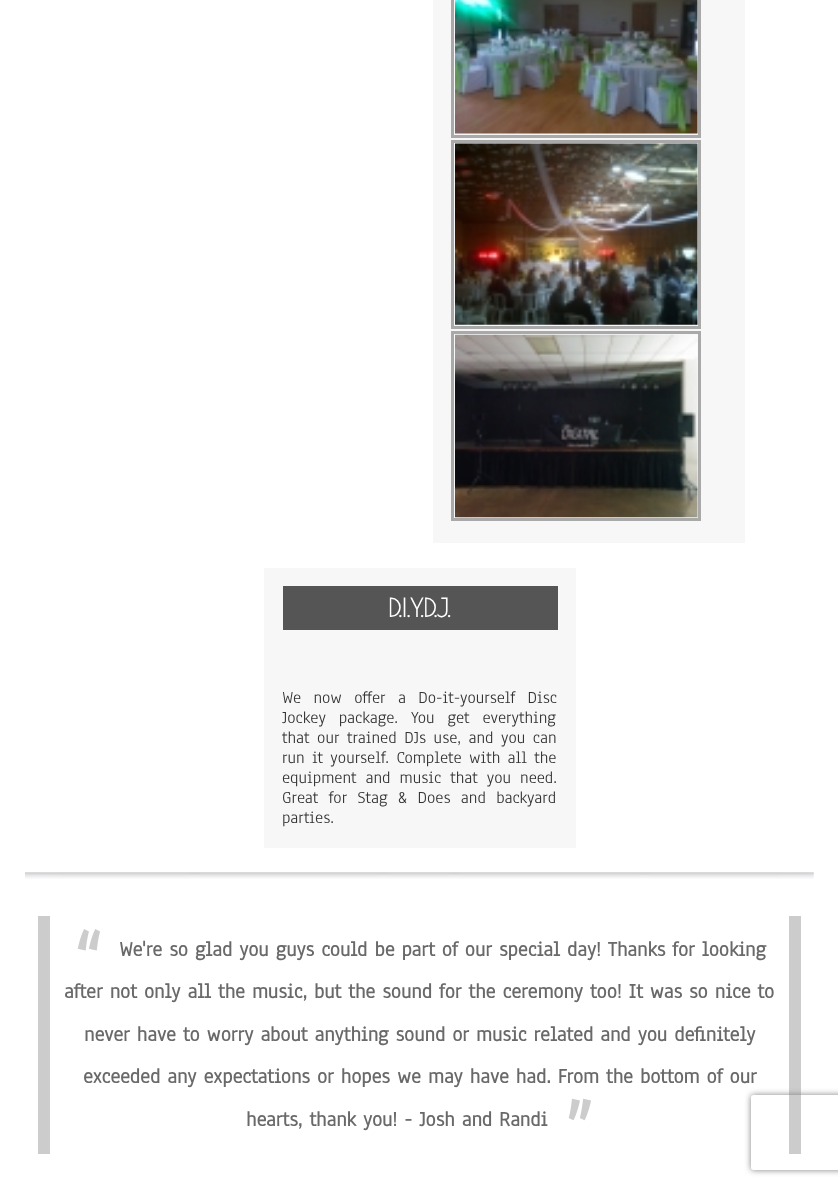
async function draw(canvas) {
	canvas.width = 838;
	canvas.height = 1187;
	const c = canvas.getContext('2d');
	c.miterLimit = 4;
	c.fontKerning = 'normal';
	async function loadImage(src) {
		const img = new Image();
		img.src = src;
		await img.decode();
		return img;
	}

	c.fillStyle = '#fff';
	c.fillRect(0, 0, 838, 1187);
	c.fillStyle = '#f7f7f7';
	c.fillRect(433, 0, 312, 543);
	c.strokeStyle = '#a9a9a9';
	c.lineWidth = 3;
	c.strokeRect(452.5, -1.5, 247, 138);
	c.drawImage(await loadImage('img1.png'), 455, 0, 243, 134);
	c.strokeRect(452.5, 141.5, 247, 186);
	c.drawImage(await loadImage('img2.png'), 455, 143, 243, 182);
	c.strokeRect(452.5, 332.5, 247, 187);
	c.drawImage(await loadImage('img3.png'), 455, 334, 243, 184);
	c.fillRect(264, 568, 312, 280);
	c.fillStyle = '#555';
	c.fillRect(283, 586, 275, 44);
	c.font = 'bold 25px Poiret One';
	c.fillStyle = '#fff';
	c.fillText('D.I.Y.D.J.', 388, 617);
	c.wordSpacing = '6.5px';
	c.font = '17.5px Anaheim';
	c.fillStyle = '#333';
	c.fillText('We now offer a Do-it-yourself Disc', 282, 703);
	c.wordSpacing = '7px';
	c.fillText('Jockey package.', 282, 723);
	c.fillText('You get everything', 411, 723);
	c.wordSpacing = '1.75px';
	c.fillText('that our trained DJs use, and you can', 282, 743);
	c.wordSpacing = '1.5px';
	c.fillText('run it yourself. Complete with all the', 282, 763);
	c.wordSpacing = '3.25px';
	c.fillText('equipment and music that you need.', 282, 783);
	c.wordSpacing = '4.5px';
	c.fillText('Great for Stag & Does and backyard', 282, 803);
	c.wordSpacing = '0px';
	c.fillText('parties.', 282, 823);
	c.drawImage(await loadImage('img4.png'), 25, 872, 789, 7);
	c.fillStyle = '#ccc';
	c.fillRect(789, 916, 12, 238);
	c.fillRect(38, 916, 12, 238);
	c.font = 'bold 85px Anaheim';
	c.fillText('“', 73, 990);
	c.font = 'bold 21.25px Anaheim';
	c.fillStyle = '#6a6969';
	for (const [text, x, y] of [
		['We\'re so glad you guys could be part of our special day! Thanks for looking', 119, 956],
		['after not only all the music, but the sound for the ceremony too! It was so nice to', 64, 998],
		['never have to worry about anything sound or music related and you definitely', 84, 1041],
		['exceeded any expectations or hopes we may have had. From the bottom of our', 83, 1083],
		['hearts, thank you! - Josh and Randi', 246, 1126],
	]) {
		c.fillText(text, x, y);
	}
	c.font = 'bold 85px Anaheim';
	c.fillStyle = '#ccc';
	c.fillText('”', 564, 1160);
	c.save();
	c.beginPath();
	c.moveTo(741, 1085);
	c.lineTo(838, 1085);
	c.lineTo(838, 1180);
	c.lineTo(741, 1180);
	c.closePath();
	c.moveTo(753.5, 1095);
	c.lineTo(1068.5, 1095);
	c.bezierCurveTo(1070, 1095, 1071, 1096, 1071, 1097.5);
	c.lineTo(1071, 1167.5);
	c.bezierCurveTo(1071, 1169, 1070, 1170, 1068.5, 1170);
	c.lineTo(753.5, 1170);
	c.bezierCurveTo(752, 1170, 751, 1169, 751, 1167.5);
	c.lineTo(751, 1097.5);
	c.bezierCurveTo(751, 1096, 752, 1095, 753.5, 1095);
	c.closePath();
	c.clip('evenodd');
	c.fillStyle = '#808080';
	c.filter = 'blur(3px)';
	c.beginPath();
	c.roundRect(751, 1095, 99, 75, 2.5);
	c.fill();
	c.filter = 'none';
	c.restore();
}

draw(document.querySelector('canvas'));
